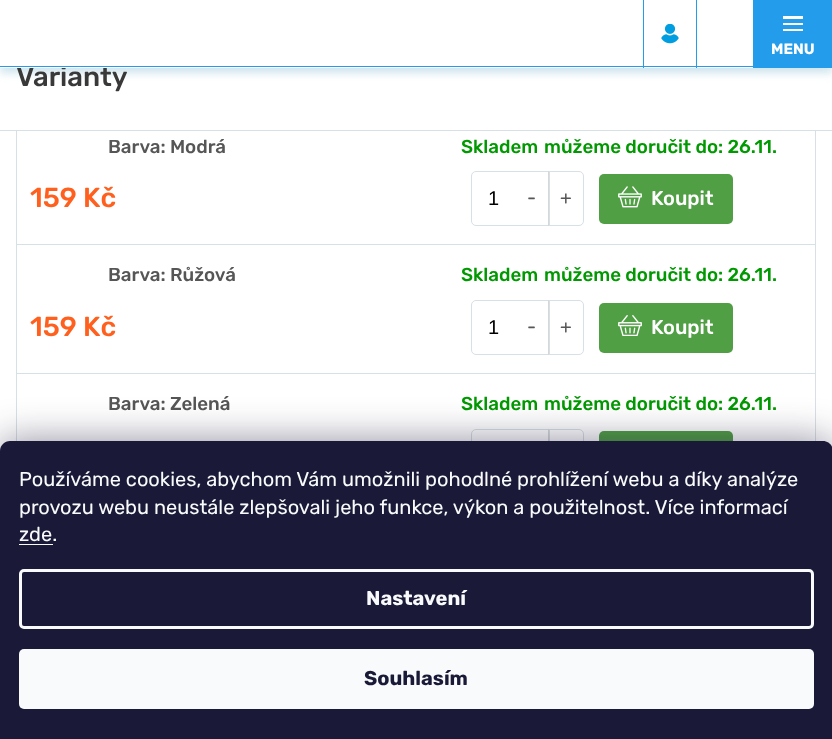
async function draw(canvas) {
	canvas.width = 832;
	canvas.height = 739;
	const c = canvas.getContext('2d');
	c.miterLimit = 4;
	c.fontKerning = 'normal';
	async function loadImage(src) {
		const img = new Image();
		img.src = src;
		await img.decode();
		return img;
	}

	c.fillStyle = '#fff';
	c.fillRect(0, 0, 832, 739);
	c.fillStyle = '#cee4ed';
	c.filter = 'blur(4px)';
	c.beginPath();
	c.rect(0, 5, 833, 68);
	c.fill();
	c.filter = 'none';
	c.font = '500 27.5px Rubik';
	c.fillStyle = '#393939';
	c.fillText('Varianty', 16, 86);
	for (const [x, y, w, h, color] of [
		[0, 0, 753, 68, '#fff'],
		[0, 66, 753, 1, '#239ceb'],
		[696, 0, 1, 68, '#239ceb'],
		[643, 0, 1, 68, '#239ceb'],
	]) {
		c.fillStyle = color;
		c.fillRect(x, y, w, h);
	}
	c.drawImage(await loadImage('img1.png'), 661, 24, 18, 20);
	for (const [x, y, w, h, color] of [
		[753, 0, 79, 68, '#239ceb'],
		[783, 16, 20, 3, '#fff'],
		[783, 23, 20, 2, '#fff'],
		[783, 29, 20, 2, '#fff'],
	]) {
		c.fillStyle = color;
		c.fillRect(x, y, w, h);
	}
	c.font = 'bold 15px Rubik';
	c.fillText('MENU', 771, 54);
	c.fillStyle = '#d6e0e5';
	c.fillRect(815, 131, 1, 113);
	c.fillRect(16, 131, 1, 113);
	c.font = '500 18.75px Rubik';
	c.fillStyle = '#565656';
	c.fillText('Barva: Modrá', 108, 153);
	c.fillStyle = '#009901';
	c.fillText('Skladem', 461, 153);
	c.fillText('můžeme doručit do: 26.11.', 544, 153);
	c.font = '500 27.5px Rubik';
	c.fillStyle = '#ff601e';
	c.fillText('159 Kč', 30, 207);
	c.beginPath();
	c.roundRect(471.5, 171.5, 112, 54, 4.5);
	c.strokeStyle = '#d6e0e5';
	c.stroke();
	c.font = '20px Liberation Sans';
	c.fillStyle = '#000';
	c.fillText('1', 488, 205);
	c.fillStyle = '#d7d7d7';
	c.fillRect(548, 171, 1, 55);
	c.font = '18.75px Rubik';
	c.fillStyle = '#565656';
	c.fillText('-', 527, 204);
	c.fillStyle = '#d6e0e5';
	c.fillRect(549, 171, 1, 55);
	c.fillStyle = '#565656';
	c.fillText('+', 560, 204);
	c.fillStyle = '#519f45';
	c.beginPath();
	c.roundRect(599, 174, 134, 50, 5);
	c.fill();
	c.drawImage(await loadImage('img2.png'), 618, 186, 24, 22);
	c.font = '500 20px Rubik';
	c.fillStyle = '#fff';
	c.fillText('Koupit', 651, 205);
	for (const [x, y, w, h, color] of [
		[16, 244, 800, 1, '#d6e0e5'],
		[815, 244, 1, 129, '#d6e0e5'],
		[16, 244, 1, 129, '#d6e0e5'],
	]) {
		c.fillStyle = color;
		c.fillRect(x, y, w, h);
	}
	c.font = '500 18.75px Rubik';
	c.fillStyle = '#565656';
	c.fillText('Barva: Růžová', 108, 281);
	c.fillStyle = '#009901';
	c.fillText('Skladem', 461, 281);
	c.fillText('můžeme doručit do: 26.11.', 544, 281);
	c.font = '500 27.5px Rubik';
	c.fillStyle = '#ff601e';
	c.fillText('159 Kč', 30, 336);
	c.beginPath();
	c.roundRect(471.5, 300.5, 112, 54, 4.5);
	c.stroke();
	c.font = '20px Liberation Sans';
	c.fillStyle = '#000';
	c.fillText('1', 488, 334);
	c.fillStyle = '#d7d7d7';
	c.fillRect(548, 300, 1, 55);
	c.font = '18.75px Rubik';
	c.fillStyle = '#565656';
	c.fillText('-', 527, 333);
	c.fillStyle = '#d6e0e5';
	c.fillRect(549, 300, 1, 55);
	c.fillStyle = '#565656';
	c.fillText('+', 560, 333);
	c.fillStyle = '#519f45';
	c.beginPath();
	c.roundRect(599, 303, 134, 50, 5);
	c.fill();
	c.drawImage(await loadImage('img3.png'), 618, 315, 24, 21);
	c.font = '500 20px Rubik';
	c.fillStyle = '#fff';
	c.fillText('Koupit', 651, 334);
	for (const [x, y, w, h, color] of [
		[16, 373, 800, 1, '#d6e0e5'],
		[815, 373, 1, 68, '#d6e0e5'],
		[16, 373, 1, 68, '#d6e0e5'],
	]) {
		c.fillStyle = color;
		c.fillRect(x, y, w, h);
	}
	c.font = '500 18.75px Rubik';
	c.fillStyle = '#565656';
	c.fillText('Barva: Zelená', 108, 410);
	c.fillStyle = '#009901';
	c.fillText('Skladem', 461, 410);
	c.fillText('můžeme doručit do: 26.11.', 544, 410);
	c.beginPath();
	c.roundRect(471.5, 429.5, 112, 54, 4.5);
	c.stroke();
	c.fillStyle = '#d7d7d7';
	c.fillRect(548, 429, 1, 12);
	c.fillStyle = '#d6e0e5';
	c.fillRect(549, 429, 1, 12);
	c.fillStyle = '#519f45';
	c.beginPath();
	c.roundRect(599, 431, 134, 50, 5);
	c.fill();
	c.fillStyle = '#d6e0e5';
	c.fillRect(0, 130, 832, 1);
	c.fillStyle = '#1b193980';
	c.filter = 'blur(19px)';
	c.beginPath();
	c.roundRect(0, 441, 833, 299, 10);
	c.fill();
	c.filter = 'none';
	c.fillStyle = '#1a1937';
	c.beginPath();
	c.moveTo(10, 441);
	c.lineTo(823, 441);
	c.bezierCurveTo(828.5, 441, 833, 445.5, 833, 451);
	c.lineTo(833, 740);
	c.lineTo(0, 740);
	c.lineTo(0, 451);
	c.bezierCurveTo(0, 445.5, 4.5, 441, 10, 441);
	c.closePath();
	c.fill();
	c.font = '20px Rubik';
	c.fillStyle = '#f8fafb';
	for (const [text, x, y] of [
		['Používáme cookies, abychom Vám umožnili pohodlné prohlížení webu a díky analýze', 19, 486],
		['provozu webu neustále zlepšovali jeho funkce, výkon a použitelnost. Více informací', 19, 514],
		['zde.', 19, 541],
	]) {
		c.fillText(text, x, y);
	}
	c.fillRect(19, 544, 34, 1);
	c.beginPath();
	c.roundRect(20.5, 570.5, 792, 57, 3.5);
	c.strokeStyle = '#f8fafb';
	c.lineWidth = 3;
	c.stroke();
	c.font = 'bold 20px Rubik';
	c.fillText('Nastavení', 366, 605);
	c.beginPath();
	c.roundRect(19, 649, 795, 60, 5);
	c.fill();
	c.fillStyle = '#1a1937';
	c.fillText('Souhlasím', 364, 685);
}

draw(document.querySelector('canvas'));
